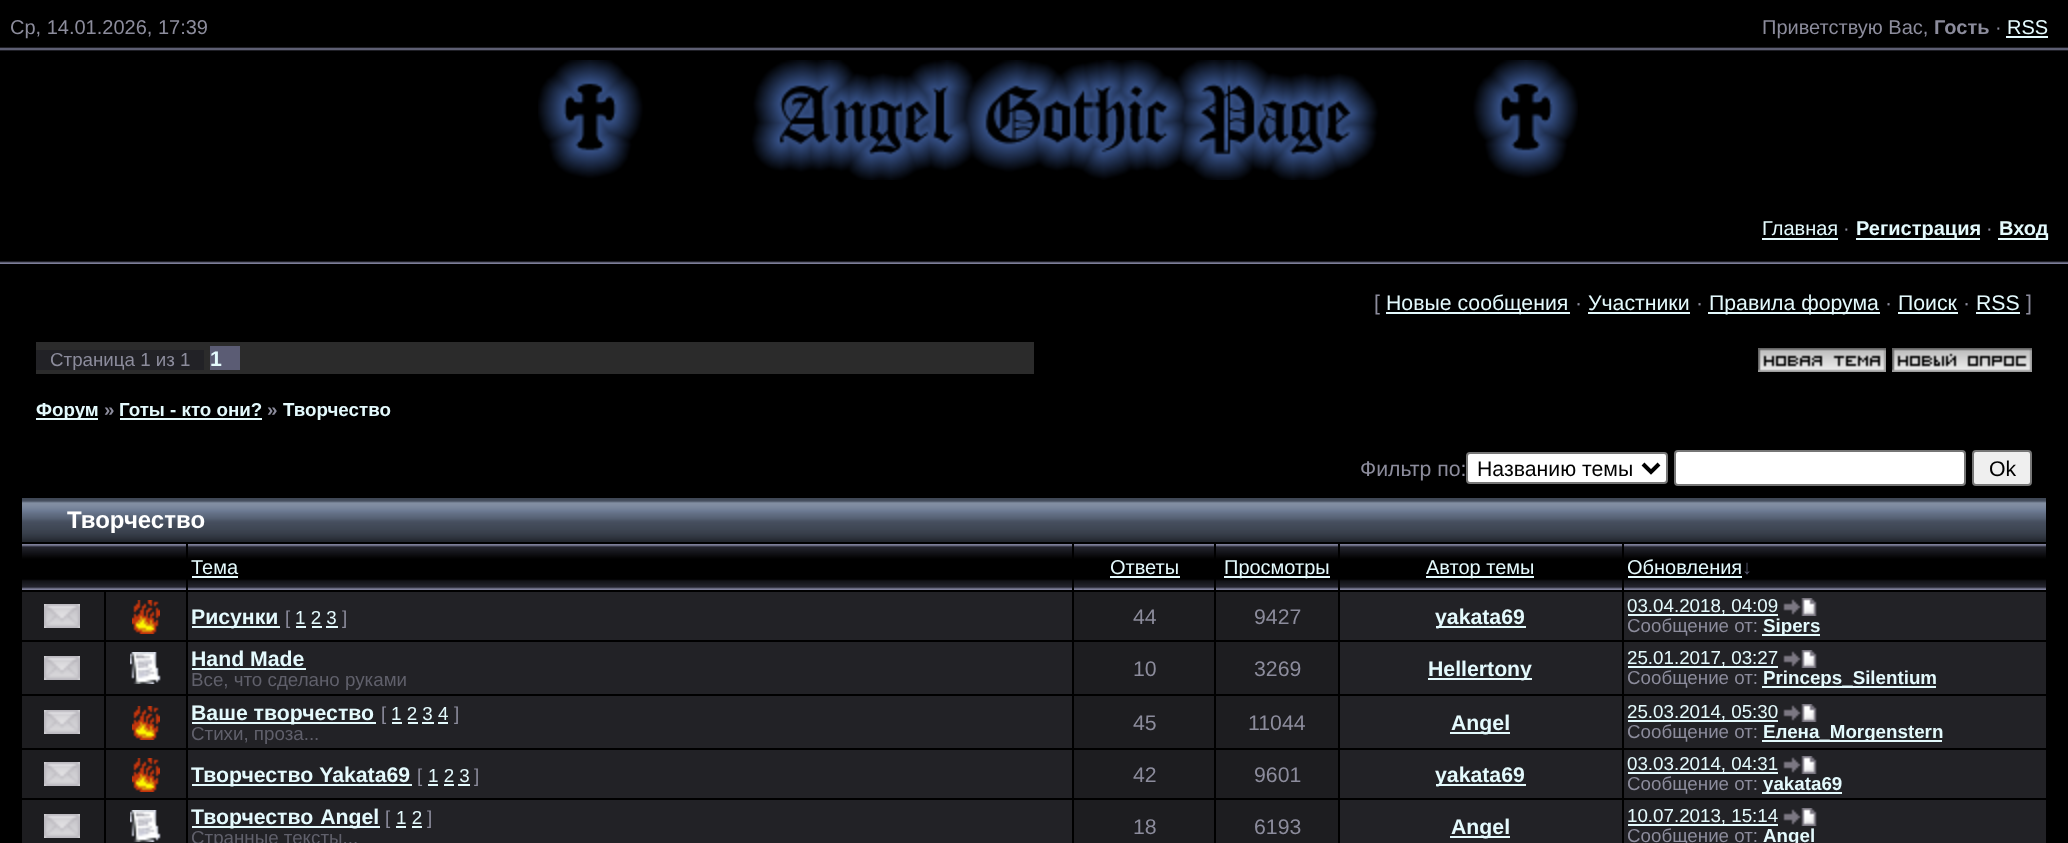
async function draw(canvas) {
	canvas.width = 2068;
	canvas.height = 843;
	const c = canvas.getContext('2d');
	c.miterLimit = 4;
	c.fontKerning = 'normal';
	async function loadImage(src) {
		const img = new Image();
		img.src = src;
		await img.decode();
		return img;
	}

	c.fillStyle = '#000';
	c.fillRect(0, 0, 2068, 843);
	c.drawImage(await loadImage('img1.png'), 0, 47, 2068, 217);
	c.font = '20px Liberation Sans';
	c.fillStyle = '#8c8c9c';
	c.fillText('Ср, 14.01.2026, 17:39', 10, 34);
	c.fillText('Приветствую Вас,', 1762, 34);
	c.font = 'bold 20px Liberation Sans';
	c.fillText('Гость', 1934, 34);
	c.font = '20px Liberation Sans';
	c.fillText('·', 1995, 34);
	c.fillStyle = '#e4fafd';
	c.fillText('RSS', 2007, 34);
	c.fillRect(2006, 36, 42, 2);
	c.drawImage(await loadImage('img2.png'), 538, 60, 1040, 120);
	c.fillText('Главная', 1762, 235);
	c.fillRect(1762, 238, 76, 2);
	c.fillStyle = '#8c8c9c';
	c.fillText('·', 1843, 235);
	c.fillStyle = '#e4fafd';
	c.fillRect(1856, 238, 124, 2);
	c.font = 'bold 20px Liberation Sans';
	c.fillText('Регистрация', 1856, 235);
	c.font = '20px Liberation Sans';
	c.fillStyle = '#8c8c9c';
	c.fillText('·', 1986, 235);
	c.fillStyle = '#e4fafd';
	c.fillRect(1998, 238, 50, 2);
	c.font = 'bold 20px Liberation Sans';
	c.fillText('Вход', 1999, 235);
	c.font = '21.25px Liberation Sans';
	c.fillStyle = '#8c8c9c';
	c.fillText('[', 1374, 310);
	c.fillStyle = '#e4fafd';
	c.fillRect(1386, 312, 184, 2);
	c.fillText('Новые сообщения', 1386, 310);
	c.fillStyle = '#8c8c9c';
	c.fillText('·', 1575, 310);
	c.fillStyle = '#e4fafd';
	c.fillText('Участники', 1588, 310);
	c.fillRect(1588, 312, 102, 2);
	c.fillStyle = '#8c8c9c';
	c.fillText('·', 1696, 310);
	c.fillStyle = '#e4fafd';
	c.fillRect(1708, 312, 172, 2);
	c.fillText('Правила форума', 1709, 310);
	c.fillStyle = '#8c8c9c';
	c.fillText('·', 1885, 310);
	c.fillStyle = '#e4fafd';
	c.fillText('Поиск', 1898, 310);
	c.fillRect(1898, 312, 60, 2);
	c.fillStyle = '#8c8c9c';
	c.fillText('·', 1963, 310);
	c.fillStyle = '#e4fafd';
	c.fillText('RSS', 1976, 310);
	c.fillRect(1976, 312, 44, 2);
	c.fillStyle = '#8c8c9c';
	c.fillText(']', 2026, 310);
	c.fillStyle = '#2b2b2b';
	c.fillRect(36, 342, 998, 32);
	c.fillStyle = '#222226';
	c.fillRect(36, 350, 168, 20);
	c.font = '18.75px Liberation Sans';
	c.fillStyle = '#8c8c9c';
	c.fillText('Страница 1 из 1', 50, 366);
	c.fillStyle = '#5b5c74';
	c.fillRect(210, 346, 30, 24);
	c.font = 'bold 21.25px Liberation Sans';
	c.fillStyle = '#e4fafd';
	c.fillText('1', 210, 366);
	c.drawImage(await loadImage('img3.png'), 1758, 348, 128, 24);
	c.drawImage(await loadImage('img4.png'), 1892, 348, 140, 24);
	c.fillRect(36, 418, 62, 2);
	c.font = 'bold 18.75px Liberation Sans';
	c.fillText('Форум', 36, 416);
	c.fillStyle = '#8c8c9c';
	c.fillText('»', 104, 416);
	c.fillStyle = '#e4fafd';
	c.fillText('Готы - кто они?', 119, 416);
	c.fillRect(120, 418, 142, 2);
	c.fillStyle = '#8c8c9c';
	c.fillText('»', 267, 416);
	c.fillStyle = '#e4fafd';
	c.fillText('Творчество', 283, 416);
	c.font = '21.25px Liberation Sans';
	c.fillStyle = '#8c8c9c';
	c.fillText('Фильтр по:', 1360, 476);
	c.fillStyle = '#fff';
	c.beginPath();
	c.roundRect(1467, 453, 200, 30, 3);
	c.fill();
	c.strokeStyle = '#767676';
	c.lineWidth = 2;
	c.stroke();
	c.beginPath();
	c.moveTo(1643, 464);
	c.lineTo(1651, 472);
	c.lineTo(1659, 464);
	c.strokeStyle = '#000';
	c.lineWidth = 4;
	c.stroke();
	c.fillStyle = '#000';
	c.fillText('Названию темы', 1477, 476);
	c.fillStyle = '#fff';
	c.beginPath();
	c.roundRect(1675, 451, 290, 34, 3);
	c.fill();
	c.strokeStyle = '#767676';
	c.lineWidth = 2;
	c.stroke();
	c.fillStyle = '#efefef';
	c.beginPath();
	c.roundRect(1973, 451, 58, 34, 3);
	c.fill();
	c.stroke();
	c.fillStyle = '#000';
	c.fillText('Ok', 1989, 476);
	c.drawImage(await loadImage('img5.png'), 22, 498, 2024, 44);
	c.font = 'bold 24px Liberation Sans';
	c.fillStyle = '#fff';
	c.fillText('Творчество', 67, 528);
	c.drawImage(await loadImage('img6.png'), 22, 544, 164, 46);
	c.drawImage(await loadImage('img7.png'), 188, 544, 884, 46);
	c.font = '20px Liberation Sans';
	c.fillStyle = '#e4fafd';
	c.fillText('Тема', 191, 574);
	c.fillRect(192, 576, 46, 2);
	c.drawImage(await loadImage('img8.png'), 1074, 544, 140, 46);
	c.fillText('Ответы', 1110, 574);
	c.fillRect(1110, 576, 70, 2);
	c.drawImage(await loadImage('img9.png'), 1216, 544, 122, 46);
	c.fillRect(1224, 576, 106, 2);
	c.fillText('Просмотры', 1224, 574);
	c.drawImage(await loadImage('img10.png'), 1340, 544, 282, 46);
	c.fillRect(1426, 576, 108, 2);
	c.fillText('Автор темы', 1426, 574);
	c.drawImage(await loadImage('img11.png'), 1624, 544, 422, 46);
	c.fillText('Обновления', 1627, 574);
	c.fillRect(1628, 576, 114, 2);
	c.fillStyle = '#5b5c74';
	c.fillText('↓', 1742, 574);
	c.fillStyle = '#1d1d20';
	c.fillRect(22, 592, 82, 48);
	c.drawImage(await loadImage('img12.png'), 44, 604, 36, 24);
	c.fillRect(106, 592, 80, 48);
	c.drawImage(await loadImage('img13.png'), 132, 600, 28, 34);
	c.fillStyle = '#222226';
	c.fillRect(188, 592, 884, 48);
	c.fillStyle = '#e4fafd';
	c.fillRect(192, 626, 88, 2);
	c.font = 'bold 21.25px Liberation Sans';
	c.fillText('Рисунки', 191, 624);
	c.font = '18.75px Liberation Sans';
	c.fillStyle = '#8c8c9c';
	c.fillText('[', 285, 624);
	c.fillStyle = '#e4fafd';
	c.fillText('1 2 3', 295, 624);
	for (const [x, y, w, h, color] of [
		[296, 626, 10, 2, '#e4fafd'],
		[312, 626, 10, 2, '#e4fafd'],
		[326, 626, 12, 2, '#e4fafd'],
	]) {
		c.fillStyle = color;
		c.fillRect(x, y, w, h);
	}
	c.fillStyle = '#8c8c9c';
	c.fillText(']', 342, 624);
	c.fillStyle = '#1d1d20';
	c.fillRect(1074, 592, 140, 48);
	c.font = '21.25px Liberation Sans';
	c.fillStyle = '#8c8c9c';
	c.fillText('44', 1133, 624);
	c.fillStyle = '#1d1d20';
	c.fillRect(1216, 592, 122, 48);
	c.fillStyle = '#8c8c9c';
	c.fillText('9427', 1254, 624);
	c.fillStyle = '#222226';
	c.fillRect(1340, 592, 282, 48);
	c.fillStyle = '#e4fafd';
	c.fillRect(1436, 626, 90, 2);
	c.font = 'bold 21.25px Liberation Sans';
	c.fillText('yakata69', 1435, 624);
	c.fillStyle = '#222226';
	c.fillRect(1624, 592, 422, 48);
	c.fillStyle = '#e4fafd';
	c.fillRect(1628, 614, 150, 2);
	c.font = '18.75px Liberation Sans';
	c.fillText('03.04.2018, 04:09', 1627, 612);
	c.drawImage(await loadImage('img14.png'), 1783, 598, 34, 18);
	c.fillStyle = '#8c8c9c';
	c.fillText('Сообщение от:', 1627, 632);
	c.fillStyle = '#e4fafd';
	c.fillRect(1762, 634, 58, 2);
	c.font = 'bold 18.75px Liberation Sans';
	c.fillText('Sipers', 1763, 632);
	c.fillStyle = '#1d1d20';
	c.fillRect(22, 642, 82, 52);
	c.drawImage(await loadImage('img12.png'), 44, 656, 36, 24);
	c.fillRect(106, 642, 80, 52);
	c.drawImage(await loadImage('img15.png'), 130, 652, 31, 32);
	c.fillStyle = '#222226';
	c.fillRect(188, 642, 884, 52);
	c.font = 'bold 21.25px Liberation Sans';
	c.fillStyle = '#e4fafd';
	c.fillText('Hand Made', 191, 666);
	c.fillRect(192, 668, 114, 2);
	c.font = '18.75px Liberation Sans';
	c.fillStyle = '#60606b';
	c.fillText('Все, что сделано руками', 191, 686);
	c.fillStyle = '#1d1d20';
	c.fillRect(1074, 642, 140, 52);
	c.font = '21.25px Liberation Sans';
	c.fillStyle = '#8c8c9c';
	c.fillText('10', 1133, 676);
	c.fillStyle = '#1d1d20';
	c.fillRect(1216, 642, 122, 52);
	c.fillStyle = '#8c8c9c';
	c.fillText('3269', 1254, 676);
	c.fillStyle = '#222226';
	c.fillRect(1340, 642, 282, 52);
	c.fillStyle = '#e4fafd';
	c.fillRect(1428, 678, 104, 2);
	c.font = 'bold 21.25px Liberation Sans';
	c.fillText('Hellertony', 1428, 676);
	c.fillStyle = '#222226';
	c.fillRect(1624, 642, 422, 52);
	c.fillStyle = '#e4fafd';
	c.fillRect(1628, 666, 150, 2);
	c.font = '18.75px Liberation Sans';
	c.fillText('25.01.2017, 03:27', 1627, 664);
	c.drawImage(await loadImage('img14.png'), 1783, 650, 34, 18);
	c.fillStyle = '#8c8c9c';
	c.fillText('Сообщение от:', 1627, 684);
	c.fillStyle = '#e4fafd';
	c.fillRect(1762, 686, 174, 2);
	c.font = 'bold 18.75px Liberation Sans';
	c.fillText('Princeps_Silentium', 1763, 684);
	c.fillStyle = '#1d1d20';
	c.fillRect(22, 696, 82, 52);
	c.drawImage(await loadImage('img12.png'), 44, 710, 36, 24);
	c.fillRect(106, 696, 80, 52);
	c.drawImage(await loadImage('img13.png'), 132, 706, 28, 34);
	c.fillStyle = '#222226';
	c.fillRect(188, 696, 884, 52);
	c.fillStyle = '#e4fafd';
	c.fillRect(192, 722, 184, 2);
	c.font = 'bold 21.25px Liberation Sans';
	c.fillText('Ваше творчество', 191, 720);
	c.font = '18.75px Liberation Sans';
	c.fillStyle = '#8c8c9c';
	c.fillText('[', 381, 720);
	c.fillStyle = '#e4fafd';
	c.fillText('1 2 3 4', 391, 720);
	for (const [x, y, w, h, color] of [
		[392, 722, 10, 2, '#e4fafd'],
		[408, 722, 10, 2, '#e4fafd'],
		[422, 722, 12, 2, '#e4fafd'],
		[438, 722, 10, 2, '#e4fafd'],
	]) {
		c.fillStyle = color;
		c.fillRect(x, y, w, h);
	}
	c.fillStyle = '#8c8c9c';
	c.fillText(']', 454, 720);
	c.fillStyle = '#60606b';
	c.fillText('Стихи, проза...', 191, 740);
	c.fillStyle = '#1d1d20';
	c.fillRect(1074, 696, 140, 52);
	c.font = '21.25px Liberation Sans';
	c.fillStyle = '#8c8c9c';
	c.fillText('45', 1133, 730);
	c.fillStyle = '#1d1d20';
	c.fillRect(1216, 696, 122, 52);
	c.fillStyle = '#8c8c9c';
	c.fillText('11044', 1248, 730);
	c.fillStyle = '#222226';
	c.fillRect(1340, 696, 282, 52);
	c.fillStyle = '#e4fafd';
	c.fillRect(1450, 732, 60, 2);
	c.font = 'bold 21.25px Liberation Sans';
	c.fillText('Angel', 1451, 730);
	c.fillStyle = '#222226';
	c.fillRect(1624, 696, 422, 52);
	c.fillStyle = '#e4fafd';
	c.fillRect(1628, 720, 150, 2);
	c.font = '18.75px Liberation Sans';
	c.fillText('25.03.2014, 05:30', 1627, 718);
	c.drawImage(await loadImage('img14.png'), 1783, 704, 34, 18);
	c.fillStyle = '#8c8c9c';
	c.fillText('Сообщение от:', 1627, 738);
	c.fillStyle = '#e4fafd';
	c.fillRect(1762, 740, 180, 2);
	c.font = 'bold 18.75px Liberation Sans';
	c.fillText('Елена_Morgenstern', 1763, 738);
	c.fillStyle = '#1d1d20';
	c.fillRect(22, 750, 82, 48);
	c.drawImage(await loadImage('img12.png'), 44, 762, 36, 24);
	c.fillRect(106, 750, 80, 48);
	c.drawImage(await loadImage('img13.png'), 132, 758, 28, 34);
	c.fillStyle = '#222226';
	c.fillRect(188, 750, 884, 48);
	c.fillStyle = '#e4fafd';
	c.fillRect(192, 784, 220, 2);
	c.font = 'bold 21.25px Liberation Sans';
	c.fillText('Творчество Yakata69', 191, 782);
	c.font = '18.75px Liberation Sans';
	c.fillStyle = '#8c8c9c';
	c.fillText('[', 417, 782);
	c.fillStyle = '#e4fafd';
	c.fillText('1 2 3', 428, 782);
	for (const [x, y, w, h, color] of [
		[428, 784, 10, 2, '#e4fafd'],
		[444, 784, 10, 2, '#e4fafd'],
		[458, 784, 12, 2, '#e4fafd'],
	]) {
		c.fillStyle = color;
		c.fillRect(x, y, w, h);
	}
	c.fillStyle = '#8c8c9c';
	c.fillText(']', 474, 782);
	c.fillStyle = '#1d1d20';
	c.fillRect(1074, 750, 140, 48);
	c.font = '21.25px Liberation Sans';
	c.fillStyle = '#8c8c9c';
	c.fillText('42', 1133, 782);
	c.fillStyle = '#1d1d20';
	c.fillRect(1216, 750, 122, 48);
	c.fillStyle = '#8c8c9c';
	c.fillText('9601', 1254, 782);
	c.fillStyle = '#222226';
	c.fillRect(1340, 750, 282, 48);
	c.fillStyle = '#e4fafd';
	c.fillRect(1436, 784, 90, 2);
	c.font = 'bold 21.25px Liberation Sans';
	c.fillText('yakata69', 1435, 782);
	c.fillStyle = '#222226';
	c.fillRect(1624, 750, 422, 48);
	c.fillStyle = '#e4fafd';
	c.fillRect(1628, 772, 150, 2);
	c.font = '18.75px Liberation Sans';
	c.fillText('03.03.2014, 04:31', 1627, 770);
	c.drawImage(await loadImage('img14.png'), 1783, 756, 34, 18);
	c.fillStyle = '#8c8c9c';
	c.fillText('Сообщение от:', 1627, 790);
	c.fillStyle = '#e4fafd';
	c.fillRect(1762, 792, 80, 2);
	c.font = 'bold 18.75px Liberation Sans';
	c.fillText('yakata69', 1763, 790);
	c.fillStyle = '#1d1d20';
	c.fillRect(22, 800, 82, 43);
	c.drawImage(await loadImage('img12.png'), 44, 814, 36, 24);
	c.fillRect(106, 800, 80, 43);
	c.drawImage(await loadImage('img15.png'), 130, 810, 31, 32);
	c.fillStyle = '#222226';
	c.fillRect(188, 800, 884, 43);
	c.fillStyle = '#e4fafd';
	c.fillRect(192, 826, 188, 2);
	c.wordSpacing = '1px';
	c.font = 'bold 21.25px Liberation Sans';
	c.fillText('Творчество Angel', 191, 824);
	c.wordSpacing = '0px';
	c.font = '18.75px Liberation Sans';
	c.fillStyle = '#8c8c9c';
	c.fillText('[', 385, 824);
	c.fillStyle = '#e4fafd';
	c.fillText('1 2', 396, 824);
	c.fillRect(396, 826, 10, 2);
	c.fillRect(412, 826, 10, 2);
	c.fillStyle = '#8c8c9c';
	c.fillText(']', 427, 824);
	c.fillStyle = '#60606b';
	c.fillText('Странные тексты...', 191, 844);
	c.fillStyle = '#1d1d20';
	c.fillRect(1074, 800, 140, 43);
	c.font = '21.25px Liberation Sans';
	c.fillStyle = '#8c8c9c';
	c.fillText('18', 1133, 834);
	c.fillStyle = '#1d1d20';
	c.fillRect(1216, 800, 122, 43);
	c.fillStyle = '#8c8c9c';
	c.fillText('6193', 1254, 834);
	c.fillStyle = '#222226';
	c.fillRect(1340, 800, 282, 43);
	c.fillStyle = '#e4fafd';
	c.fillRect(1450, 836, 60, 2);
	c.font = 'bold 21.25px Liberation Sans';
	c.fillText('Angel', 1451, 834);
	c.fillStyle = '#222226';
	c.fillRect(1624, 800, 422, 43);
	c.fillStyle = '#e4fafd';
	c.fillRect(1628, 824, 150, 2);
	c.font = '18.75px Liberation Sans';
	c.fillText('10.07.2013, 15:14', 1627, 822);
	c.drawImage(await loadImage('img14.png'), 1783, 808, 34, 18);
	c.fillStyle = '#8c8c9c';
	c.fillText('Сообщение от:', 1627, 842);
	c.font = 'bold 18.75px Liberation Sans';
	c.fillStyle = '#e4fafd';
	c.fillText('Angel', 1763, 842);
}

draw(document.querySelector('canvas'));
